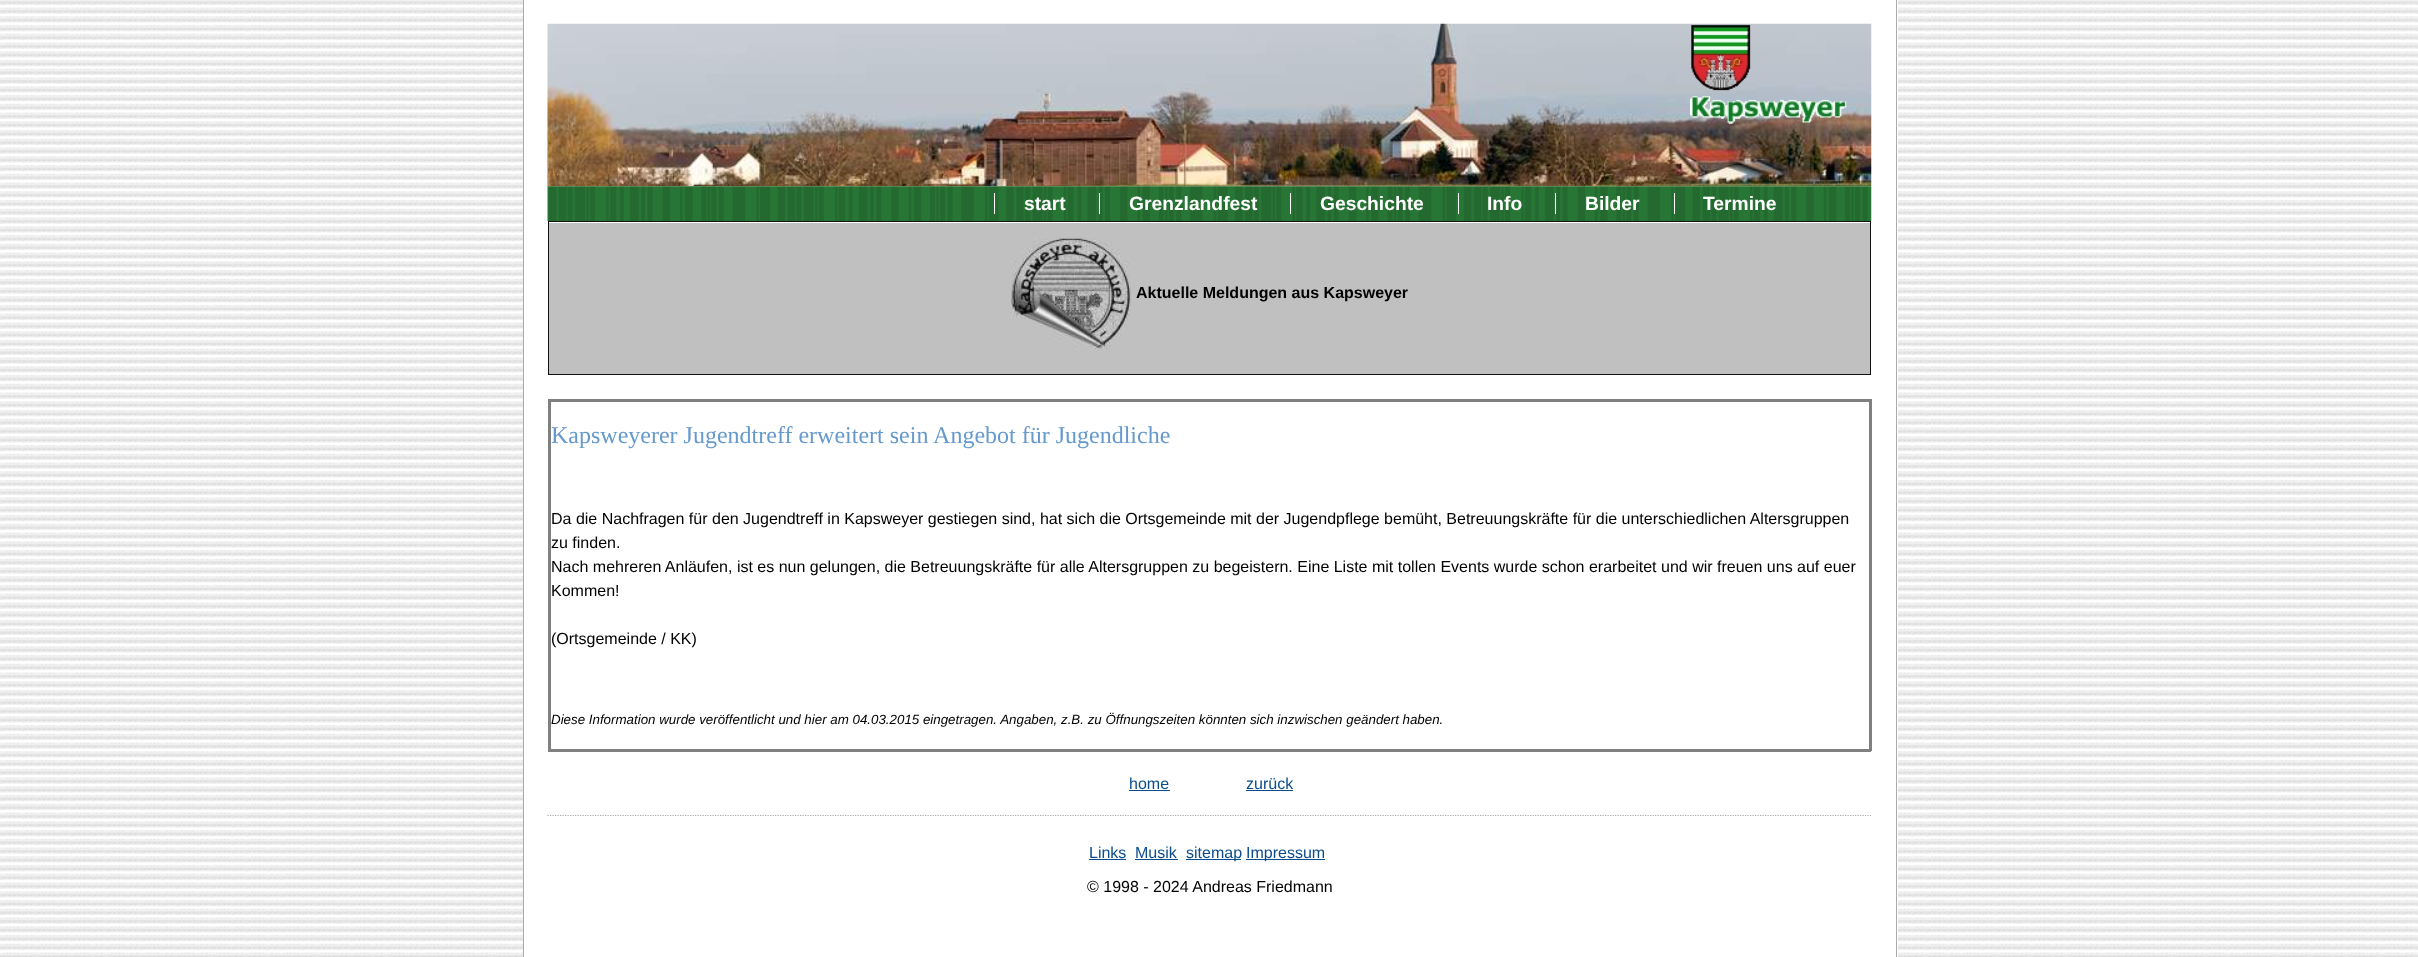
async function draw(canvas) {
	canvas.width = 2418;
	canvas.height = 957;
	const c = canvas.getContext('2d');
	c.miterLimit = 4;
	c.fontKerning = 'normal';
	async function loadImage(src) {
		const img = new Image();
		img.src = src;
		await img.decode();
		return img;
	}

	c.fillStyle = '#fff';
	c.fillRect(0, 0, 2418, 957);
	c.drawImage(await loadImage('img1.png'), 0, 0, 2418, 957);
	for (const [x, y, w, h, color] of [
		[524, 0, 1374, 957, '#fff'],
		[1896, 0, 1, 957, '#aaa'],
		[523, 0, 1, 957, '#aaa'],
	]) {
		c.fillStyle = color;
		c.fillRect(x, y, w, h);
	}
	c.drawImage(await loadImage('img2.png'), 547, 23, 1325, 164);
	c.drawImage(await loadImage('img3.png'), 1690, 24, 157, 100);
	c.drawImage(await loadImage('img4.png'), 547, 186, 1325, 36);
	c.font = 'bold 19.25px Liberation Sans';
	c.fillStyle = '#fff';
	c.fillText('start', 1024, 210);
	c.fillRect(994, 193, 1, 21);
	c.fillText('Grenzlandfest', 1129, 210);
	c.fillRect(1099, 193, 1, 21);
	c.fillText('Geschichte', 1320, 210);
	c.fillRect(1290, 193, 1, 21);
	c.fillText('Info', 1487, 210);
	c.fillRect(1458, 193, 1, 21);
	c.fillText('Bilder', 1585, 210);
	c.fillRect(1555, 193, 1, 21);
	c.fillText('Termine', 1703, 210);
	for (const [x, y, w, h, color] of [
		[1674, 193, 1, 21, '#fff'],
		[548, 221, 1323, 1, '#111'],
		[1870, 221, 1, 154, '#111'],
		[548, 374, 1323, 1, '#111'],
		[548, 221, 1, 154, '#111'],
		[549, 223, 1321, 151, '#c0c0c0'],
	]) {
		c.fillStyle = color;
		c.fillRect(x, y, w, h);
	}
	c.drawImage(await loadImage('img5.png'), 1011, 238, 120, 111);
	c.font = 'bold 16px Liberation Sans';
	c.fillStyle = '#000';
	c.fillText('Aktuelle Meldungen aus Kapsweyer', 1136, 298);
	for (const [x, y, w, h, color] of [
		[548, 399, 1323, 3, '#808080'],
		[1869, 399, 3, 352, '#808080'],
		[548, 749, 1323, 3, '#808080'],
		[548, 399, 3, 352, '#808080'],
	]) {
		c.fillStyle = color;
		c.fillRect(x, y, w, h);
	}
	c.font = '24px Liberation Serif';
	c.fillStyle = '#69c';
	c.fillText('Kapsweyerer Jugendtreff erweitert sein Angebot für Jugendliche', 551, 443);
	c.font = '16px Liberation Sans';
	c.fillStyle = '#000';
	for (const [text, x, y] of [
		['Da die Nachfragen für den Jugendtreff in Kapsweyer gestiegen sind, hat sich die Ortsgemeinde mit der Jugendpflege bemüht, Betreuungskräfte für die unterschiedlichen Altersgruppen', 551, 524],
		['zu finden.', 551, 548],
		['Nach mehreren Anläufen, ist es nun gelungen, die Betreuungskräfte für alle Altersgruppen zu begeistern. Eine Liste mit tollen Events wurde schon erarbeitet und wir freuen uns auf euer', 551, 572],
		['Kommen!', 551, 596],
		['(Ortsgemeinde / KK)', 551, 644],
	]) {
		c.fillText(text, x, y);
	}
	c.font = 'italic 13.33px Liberation Sans';
	c.fillText('Diese Information wurde veröffentlicht und hier am 04.03.2015 eingetragen. Angaben, z.B. zu Öffnungszeiten könnten sich inzwischen geändert haben.', 551, 724);
	c.font = '16px Liberation Sans';
	c.fillStyle = '#0b4d8c';
	c.fillText('home', 1129, 789);
	c.fillRect(1129, 790, 41, 1);
	c.fillText('zurück', 1246, 789);
	c.fillRect(1246, 790, 47, 1);
	c.beginPath();
	c.moveTo(547.5, 815.5);
	c.lineTo(1871, 815.5);
	c.strokeStyle = '#aaa';
	c.lineWidth = 1.2;
	c.setLineDash([1.25, 1.25]);
	c.stroke();
	c.fillText('Links', 1089, 858);
	c.fillRect(1089, 859, 37, 1);
	c.fillText('Musik', 1135, 858);
	c.fillRect(1135, 859, 43, 1);
	c.fillRect(1186, 859, 55, 1);
	c.fillText('sitemap', 1186, 858);
	c.fillRect(1246, 859, 79, 1);
	c.fillText('Impressum', 1246, 858);
	c.fillStyle = '#000';
	c.fillText('© 1998 - 2024 Andreas Friedmann', 1087, 892);
}

draw(document.querySelector('canvas'));
